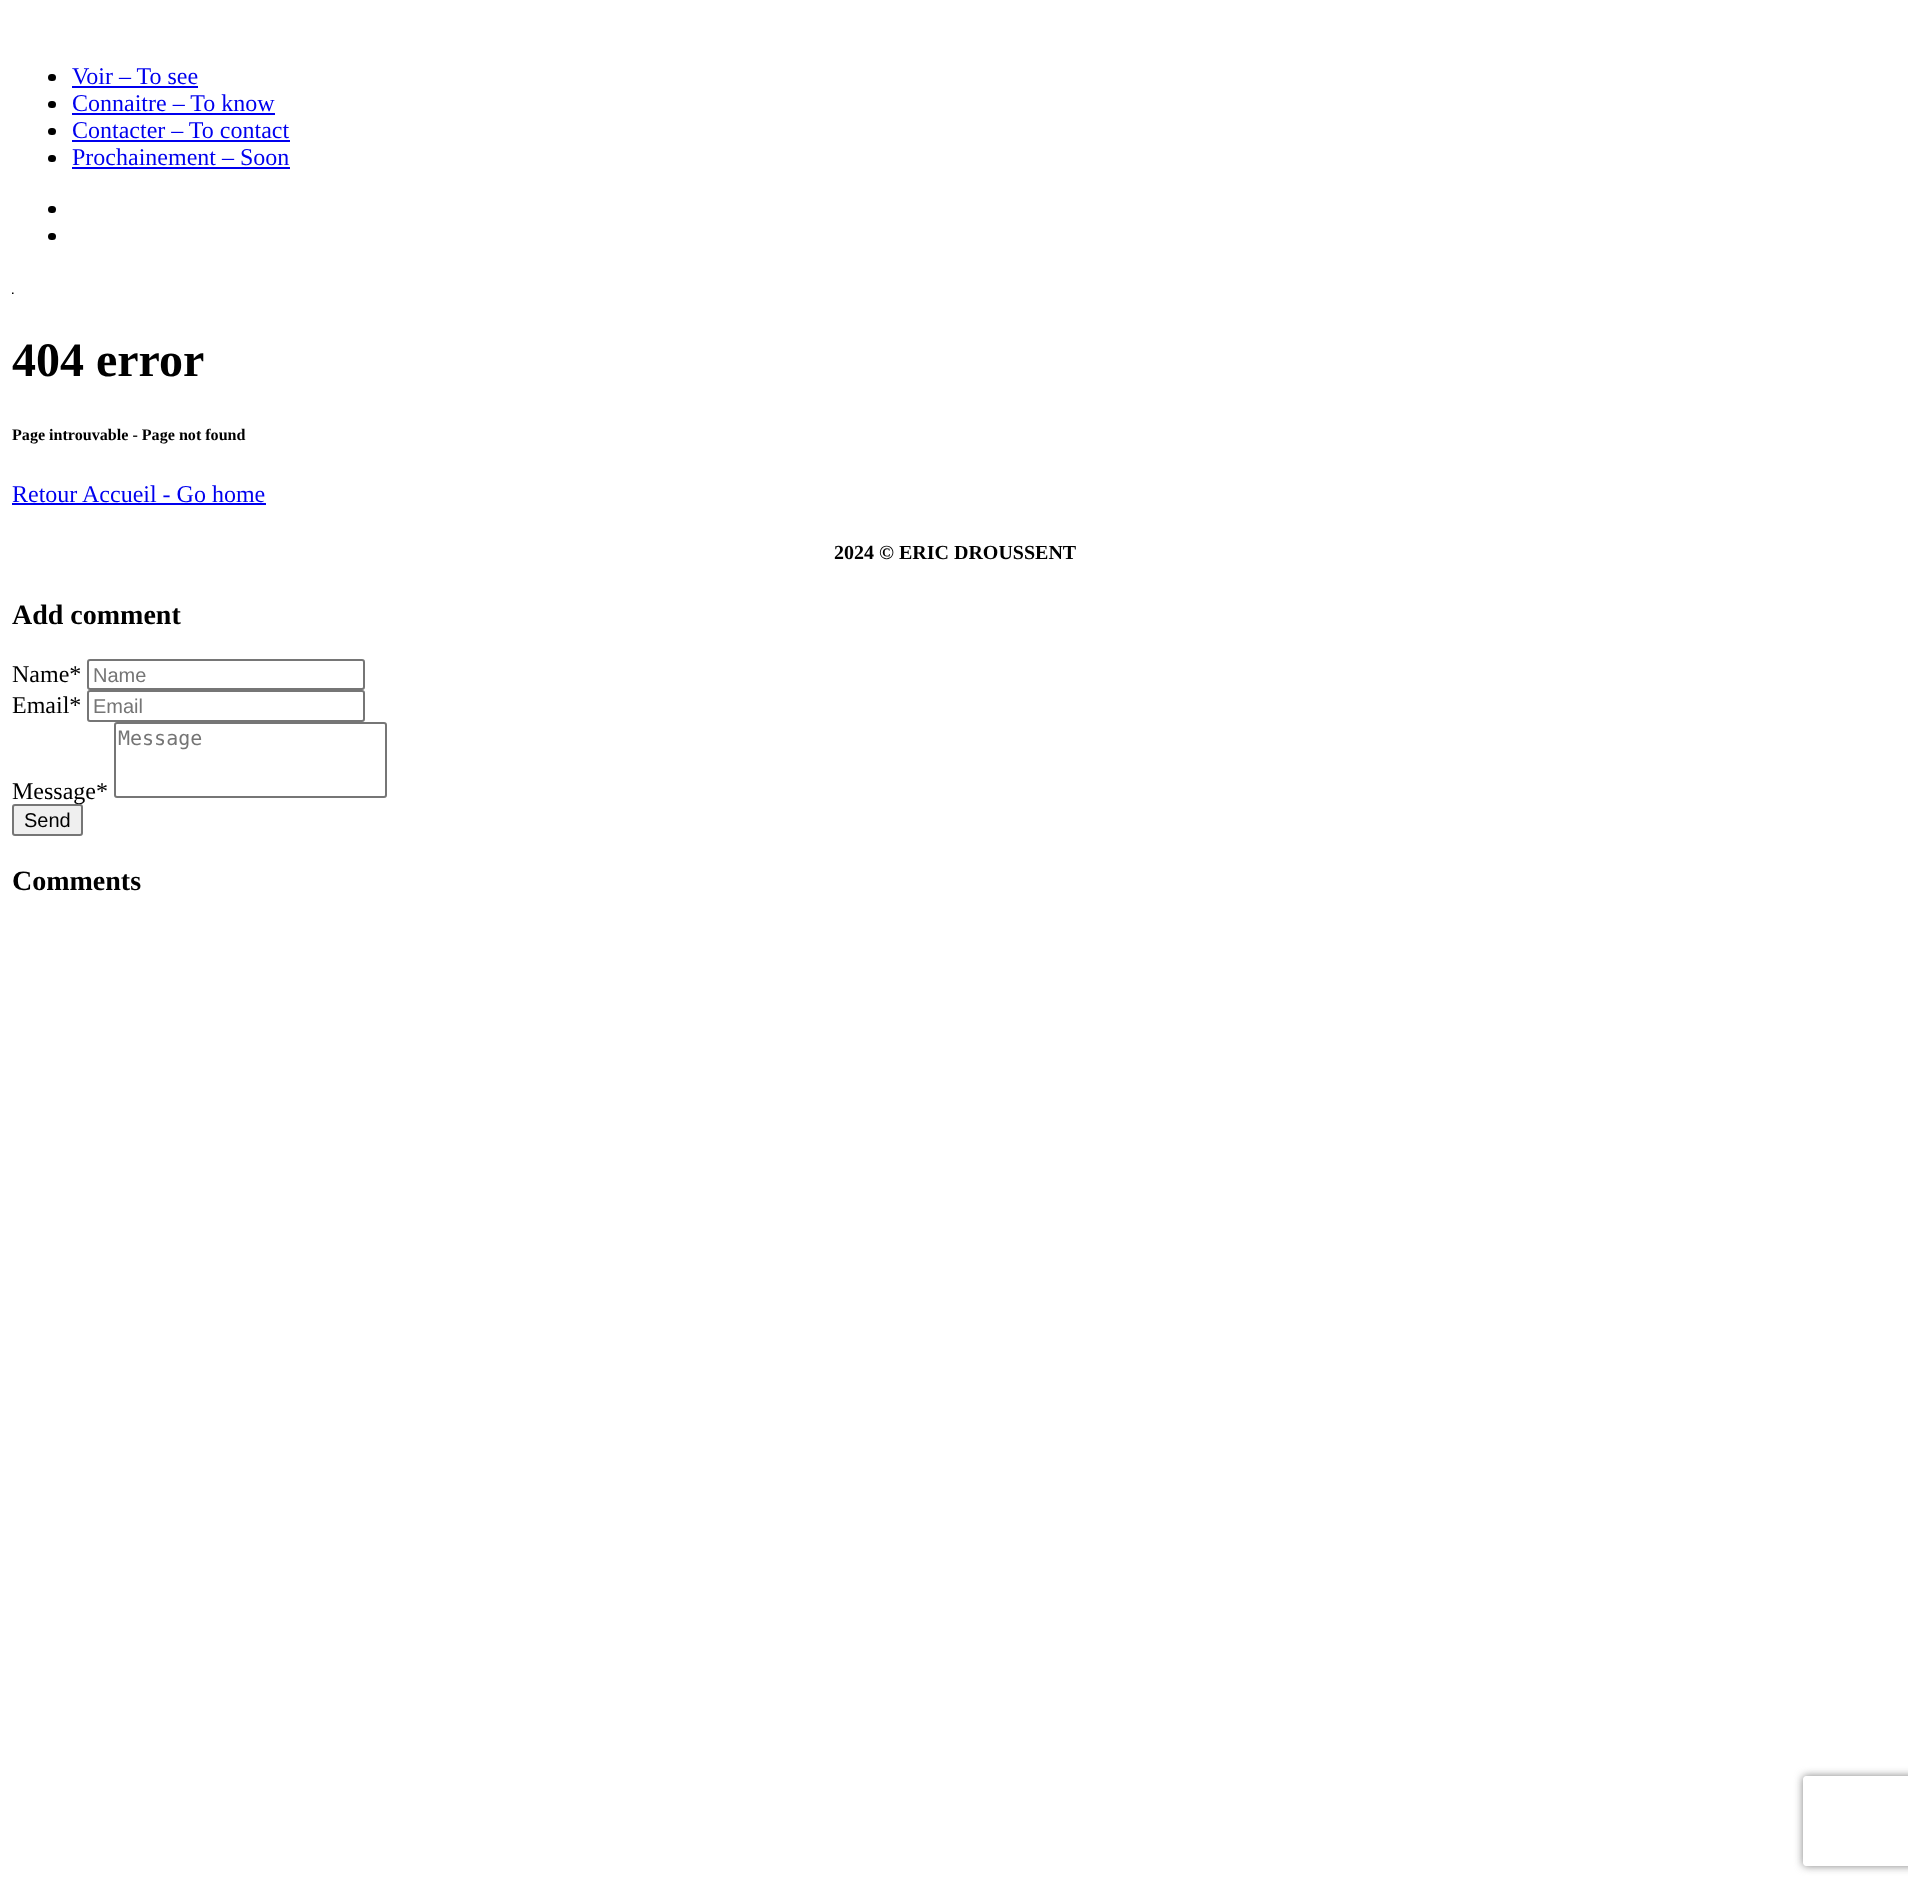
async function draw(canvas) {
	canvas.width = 1908;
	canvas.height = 1887;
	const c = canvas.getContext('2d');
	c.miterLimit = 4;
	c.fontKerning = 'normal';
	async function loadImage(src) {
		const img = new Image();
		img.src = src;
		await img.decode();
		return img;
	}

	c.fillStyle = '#fff';
	c.fillRect(0, 0, 1908, 1887);
	c.fillStyle = '#000';
	c.beginPath();
	c.roundRect(48, 74, 8, 7, 3.5);
	c.fill();
	c.font = '24px Liberation Serif';
	c.fillStyle = '#00e';
	c.fillText('Voir – To see', 72, 84);
	c.fillRect(72, 86, 126, 2);
	c.fillStyle = '#000';
	c.beginPath();
	c.roundRect(48, 101, 8, 7, 3.5);
	c.fill();
	c.fillStyle = '#00e';
	c.fillText('Connaitre – To know', 72, 111);
	c.fillRect(72, 113, 203, 2);
	c.fillStyle = '#000';
	c.beginPath();
	c.roundRect(48, 128, 8, 7, 3.5);
	c.fill();
	c.fillStyle = '#00e';
	c.fillText('Contacter – To contact', 72, 138);
	c.fillRect(72, 140, 218, 2);
	c.fillStyle = '#000';
	c.beginPath();
	c.roundRect(48, 155, 8, 7, 3.5);
	c.fill();
	c.fillStyle = '#00e';
	c.fillText('Prochainement – Soon', 72, 165);
	c.fillRect(72, 167, 218, 2);
	c.fillStyle = '#000';
	c.beginPath();
	c.roundRect(48, 206, 8, 7, 3.5);
	c.fill();
	c.beginPath();
	c.roundRect(48, 233, 8, 7, 3.5);
	c.fill();
	c.drawImage(await loadImage('img1.png'), 12, 292, 2, 2);
	c.font = 'bold 48px Liberation Serif';
	c.fillText('404 error', 12, 376);
	c.font = 'bold 16.1px Liberation Serif';
	c.fillText('Page introuvable - Page not found', 12, 440);
	c.font = '24px Liberation Serif';
	c.fillStyle = '#00e';
	c.fillText('Retour Accueil - Go home', 12, 502);
	c.fillRect(12, 503, 254, 2);
	c.font = 'bold 20px Liberation Serif';
	c.fillStyle = '#000';
	c.fillText('2024 © ERIC DROUSSENT', 834, 559);
	c.font = 'bold 28px Liberation Serif';
	c.fillText('Add comment', 12, 624);
	c.font = '24px Liberation Serif';
	c.fillText('Name*', 12, 682);
	c.beginPath();
	c.roundRect(88, 660, 276, 29, 2);
	c.strokeStyle = '#767676';
	c.lineWidth = 2;
	c.stroke();
	c.font = '20px Liberation Sans';
	c.fillStyle = '#757575';
	c.fillText('Name', 93, 682);
	c.font = '24px Liberation Serif';
	c.fillStyle = '#000';
	c.fillText('Email*', 12, 713);
	c.beginPath();
	c.roundRect(88, 691, 276, 30, 2);
	c.stroke();
	c.font = '20px Liberation Sans';
	c.fillStyle = '#757575';
	c.fillText('Email', 93, 713);
	c.beginPath();
	c.roundRect(115, 723, 271, 74, 2);
	c.stroke();
	c.font = '20px DejaVu Sans Mono';
	c.fillText('Message', 118, 745);
	c.font = '24px Liberation Serif';
	c.fillStyle = '#000';
	c.fillText('Message*', 12, 799);
	c.fillStyle = '#efefef';
	c.beginPath();
	c.roundRect(13, 805, 69, 30, 2);
	c.fill();
	c.stroke();
	c.font = '20px Liberation Sans';
	c.fillStyle = '#000';
	c.fillText('Send', 24, 827);
	c.font = 'bold 28px Liberation Serif';
	c.fillText('Comments', 12, 890);
	c.save();
	c.beginPath();
	c.moveTo(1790, 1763);
	c.lineTo(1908, 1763);
	c.lineTo(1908, 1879);
	c.lineTo(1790, 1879);
	c.closePath();
	c.moveTo(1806, 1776);
	c.lineTo(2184, 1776);
	c.bezierCurveTo(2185.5, 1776, 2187, 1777.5, 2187, 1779);
	c.lineTo(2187, 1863);
	c.bezierCurveTo(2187, 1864.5, 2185.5, 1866, 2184, 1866);
	c.lineTo(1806, 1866);
	c.bezierCurveTo(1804.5, 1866, 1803, 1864.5, 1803, 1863);
	c.lineTo(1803, 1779);
	c.bezierCurveTo(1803, 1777.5, 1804.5, 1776, 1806, 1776);
	c.closePath();
	c.clip('evenodd');
	c.fillStyle = '#808080';
	c.filter = 'blur(4px)';
	c.beginPath();
	c.roundRect(1803, 1776, 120, 90, 3);
	c.fill();
	c.filter = 'none';
	c.restore();
}

draw(document.querySelector('canvas'));
